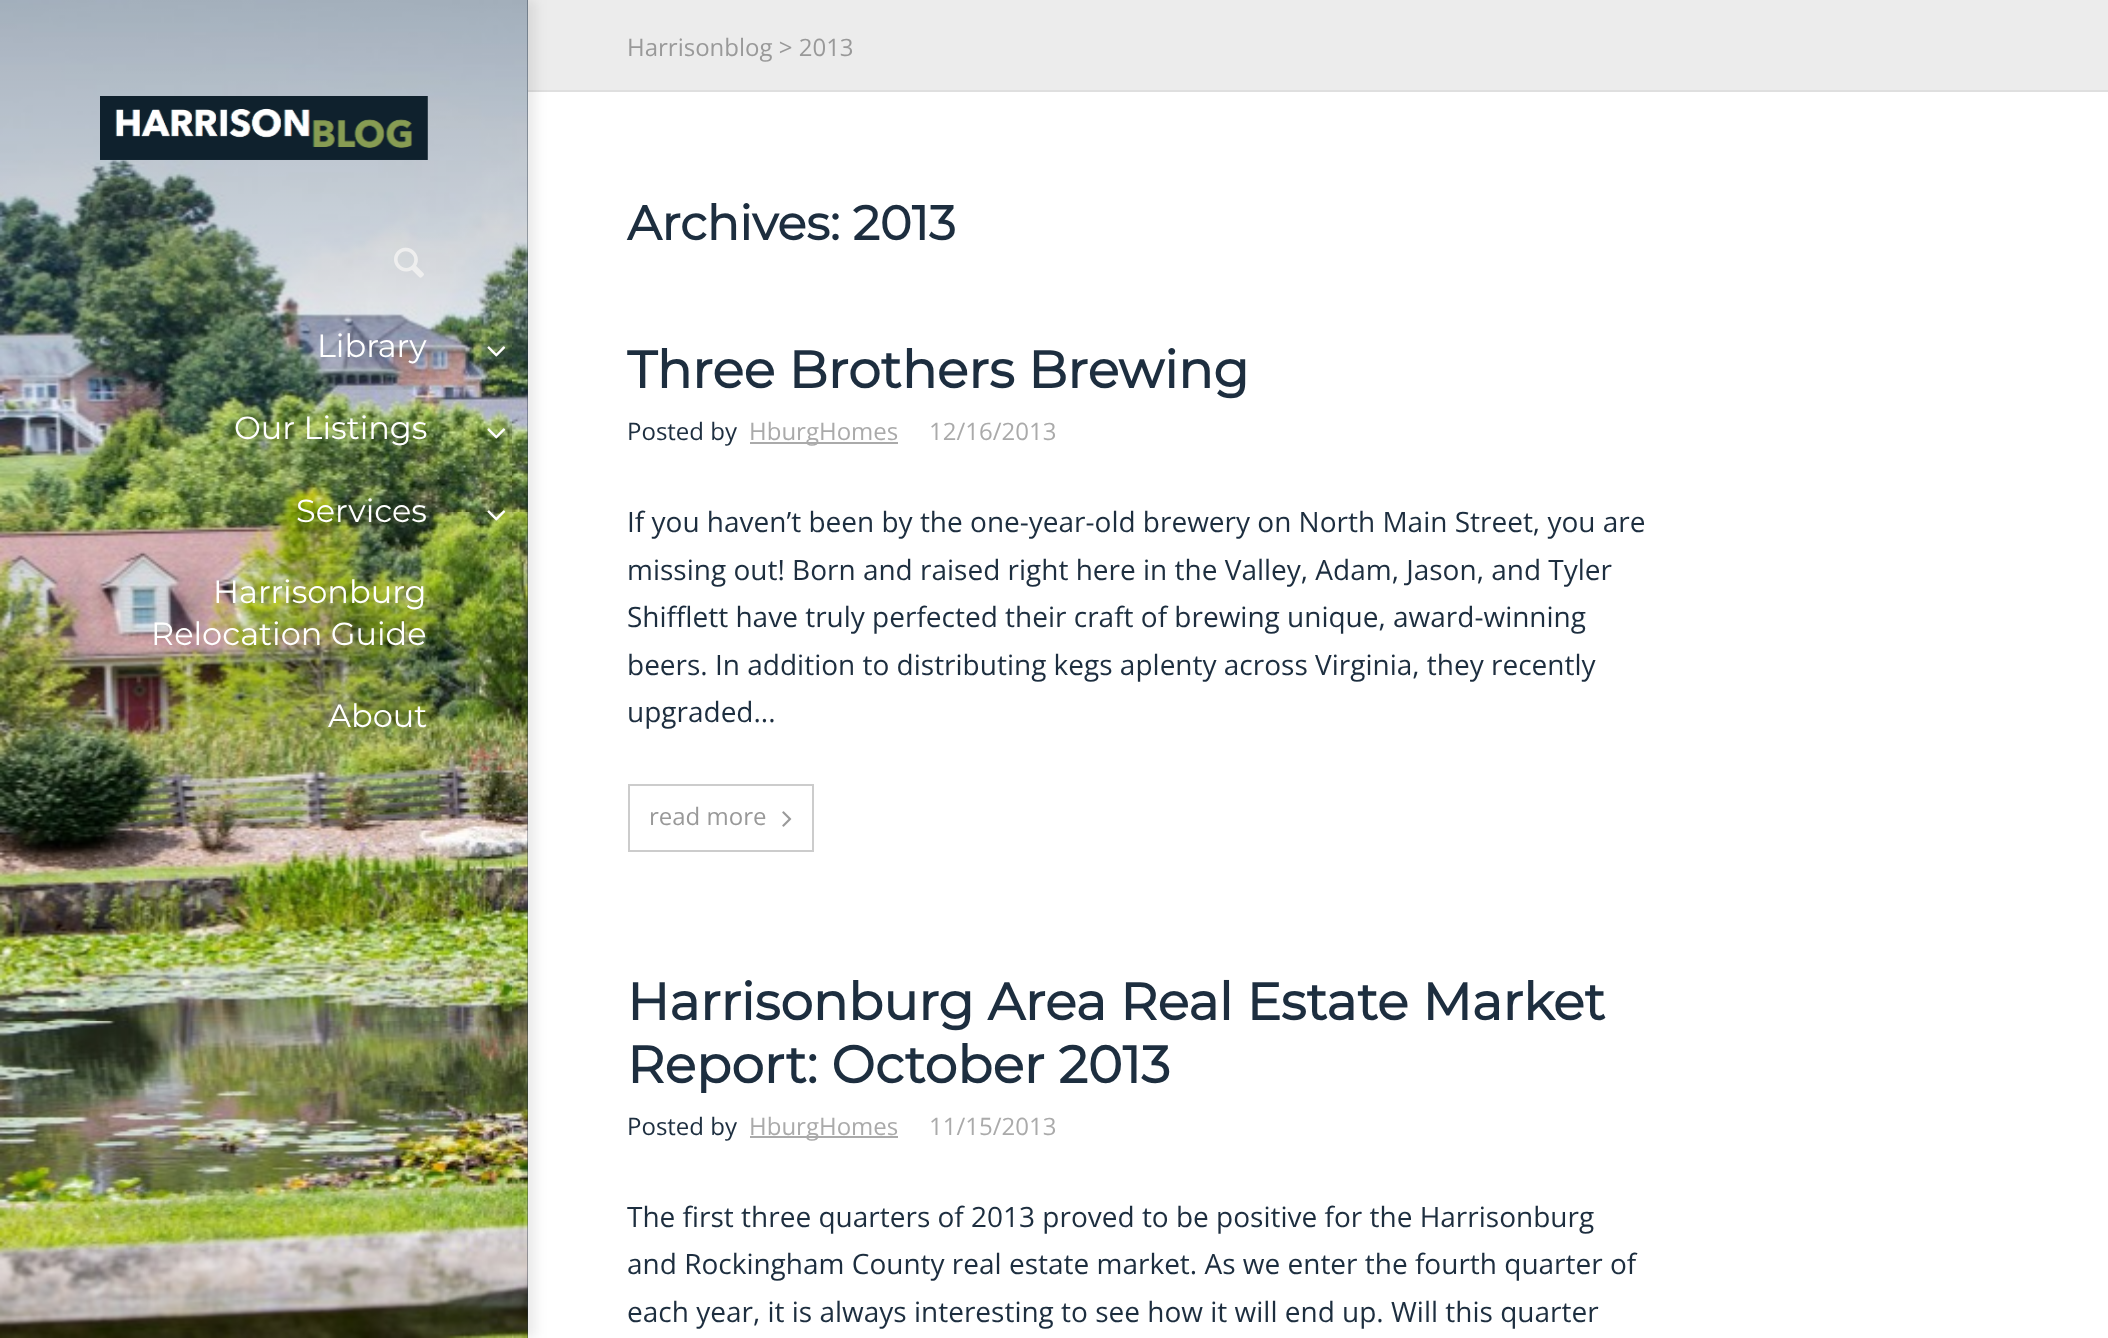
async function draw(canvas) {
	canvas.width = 2108;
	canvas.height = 1338;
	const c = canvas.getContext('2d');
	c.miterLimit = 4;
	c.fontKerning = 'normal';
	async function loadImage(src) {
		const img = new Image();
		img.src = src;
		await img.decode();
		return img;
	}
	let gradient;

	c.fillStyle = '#fff';
	c.fillRect(0, 0, 2108, 1338);
	c.fillStyle = '#ececec';
	c.fillRect(528, 0, 1580, 90);
	c.fillStyle = '#dfdfdf';
	c.fillRect(528, 90, 1580, 2);
	c.fillStyle = '#00000014';
	c.filter = 'blur(6px)';
	c.beginPath();
	c.rect(8, 0, 528, 1338);
	c.fill();
	c.filter = 'none';
	c.fillStyle = '#1d2e3f';
	c.fillRect(527, 0, 1, 1338);
	c.drawImage(await loadImage('img1.png'), 0, 0, 528, 1338);
	gradient = c.createLinearGradient(264, 0, 264, 416);
	gradient.addColorStop(0, '#00000040');
	gradient.addColorStop(0.65, '#0000001f');
	gradient.addColorStop(1, '#00000000');
	c.fillStyle = gradient;
	c.fillRect(0, 0, 528, 390);
	c.drawImage(await loadImage('img2.png'), 100, 96, 328, 64);
	c.drawImage(await loadImage('img3.png'), 394, 247, 30, 31);
	c.font = '100 32px Montserrat';
	c.fillStyle = '#fff';
	c.fillText('Library', 317, 357);
	c.drawImage(await loadImage('img4.png'), 487, 346, 19, 11);
	c.fillText('Our Listings', 234, 439);
	c.drawImage(await loadImage('img5.png'), 487, 428, 19, 11);
	c.fillText('Services', 296, 522);
	c.drawImage(await loadImage('img6.png'), 487, 510, 19, 11);
	for (const [text, x, y] of [
		['Harrisonburg', 213, 603],
		['Relocation Guide', 151, 645],
		['About', 328, 727],
	]) {
		c.fillText(text, x, y);
	}
	c.font = '24px Open Sans';
	c.fillStyle = '#999';
	c.fillText('Harrisonblog > 2013', 627, 56);
	c.font = 'bold 48px Montserrat';
	c.fillStyle = '#1d2e3f';
	c.fillText('Archives: 2013', 627, 240);
	c.font = 'bold 52px Montserrat';
	c.fillText('Three Brothers Brewing', 627, 388);
	c.font = '24px Open Sans';
	c.fillText('Posted by', 627, 440);
	c.fillStyle = '#aaa';
	c.fillRect(750, 442, 148, 2);
	c.fillText('HburgHomes', 749, 440);
	c.fillText('12/16/2013', 929, 440);
	c.font = '28px Open Sans';
	c.fillStyle = '#1d2e3f';
	for (const [text, x, y] of [
		['If you haven’t been by the one-year-old brewery on North Main Street, you are', 627, 532],
		['missing out! Born and raised right here in the Valley, Adam, Jason, and Tyler', 627, 580],
		['Shifflett have truly perfected their craft of brewing unique, award-winning', 627, 627],
		['beers. In addition to distributing kegs aplenty across Virginia, they recently', 627, 675],
		['upgraded...', 627, 722],
	]) {
		c.fillText(text, x, y);
	}
	c.strokeStyle = '#ccc';
	c.lineWidth = 2;
	c.strokeRect(629, 785, 184, 66);
	c.font = '24px Open Sans';
	c.fillStyle = '#999';
	c.fillText('read more', 649, 825);
	c.drawImage(await loadImage('img7.png'), 782, 811, 10, 16);
	c.font = 'bold 52px Montserrat';
	c.fillStyle = '#1d2e3f';
	c.fillText('Harrisonburg Area Real Estate Market', 627, 1020);
	c.fillText('Report: October 2013', 627, 1083);
	c.font = '24px Open Sans';
	c.fillText('Posted by', 627, 1135);
	c.fillStyle = '#aaa';
	c.fillRect(750, 1136, 148, 2);
	c.fillText('HburgHomes', 749, 1135);
	c.fillText('11/15/2013', 929, 1135);
	c.font = '28px Open Sans';
	c.fillStyle = '#1d2e3f';
	for (const [text, x, y] of [
		['The first three quarters of 2013 proved to be positive for the Harrisonburg', 627, 1227],
		['and Rockingham County real estate market. As we enter the fourth quarter of', 627, 1274],
		['each year, it is always interesting to see how it will end up. Will this quarter', 627, 1322],
	]) {
		c.fillText(text, x, y);
	}
}

draw(document.querySelector('canvas'));
